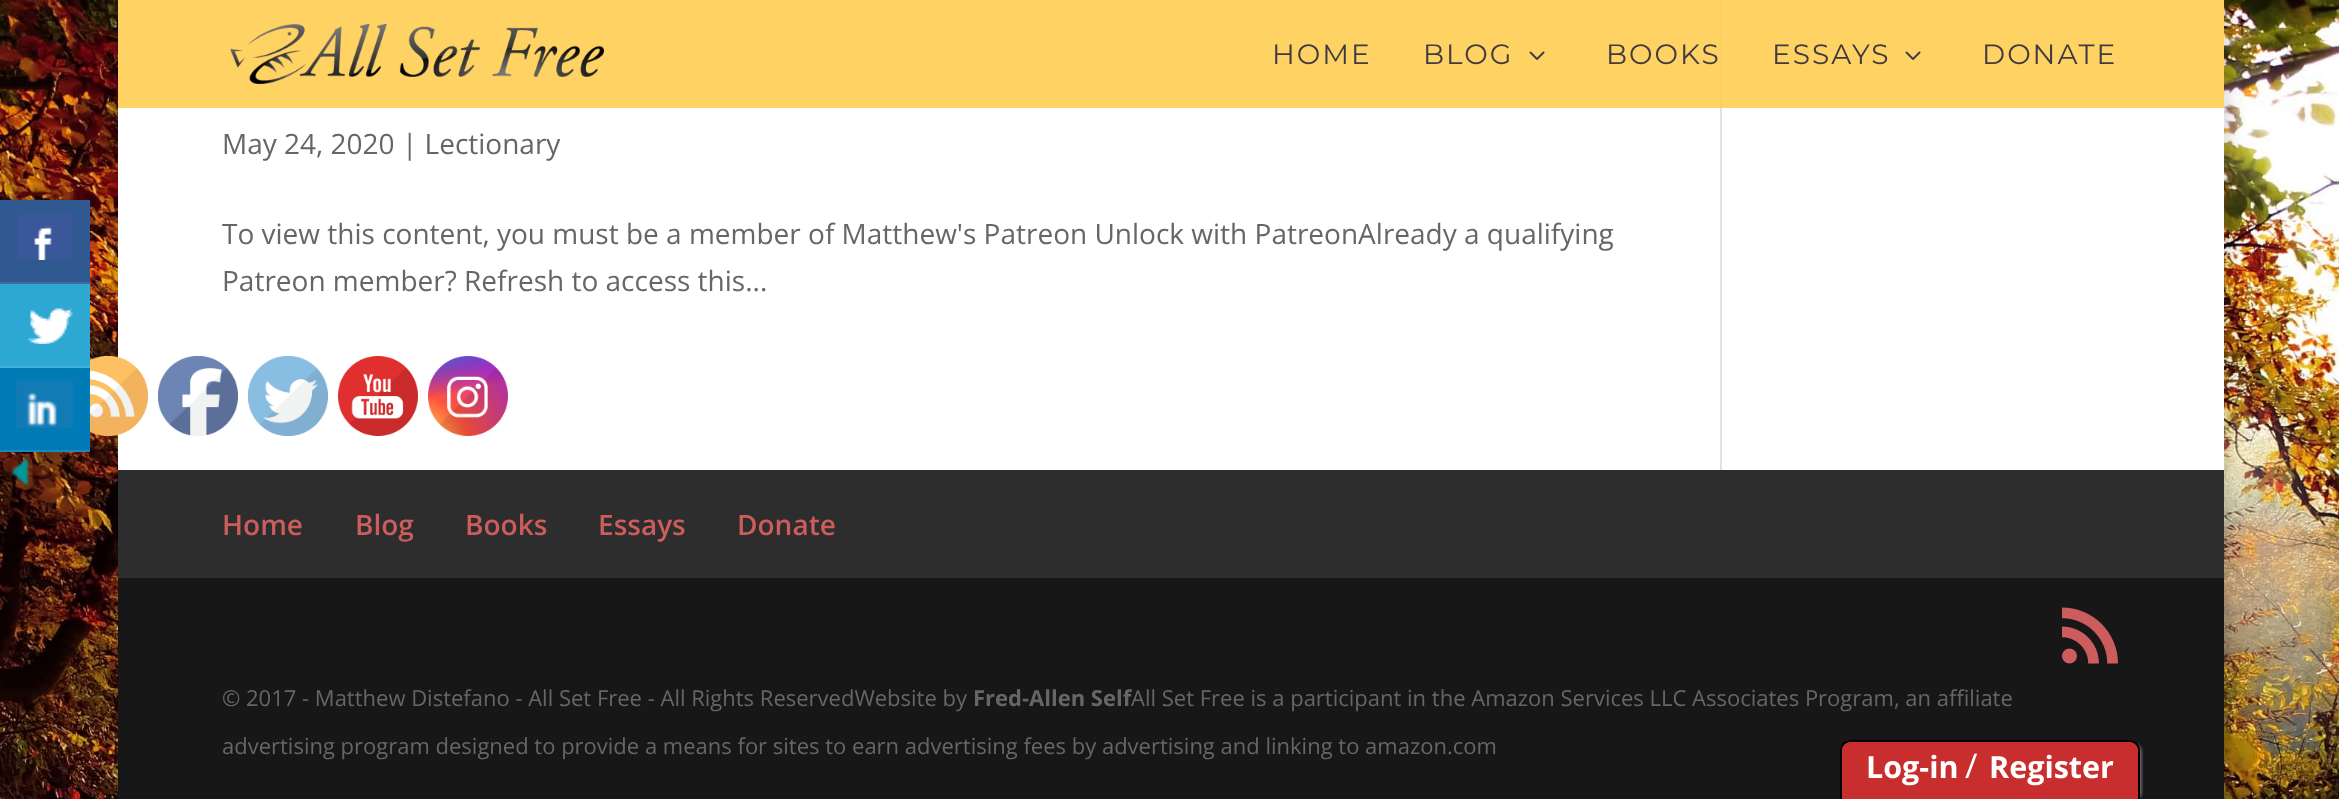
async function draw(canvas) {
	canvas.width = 2339;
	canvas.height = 799;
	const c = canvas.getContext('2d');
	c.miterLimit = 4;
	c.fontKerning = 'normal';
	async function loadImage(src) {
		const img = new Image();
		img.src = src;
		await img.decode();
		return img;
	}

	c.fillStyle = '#fff';
	c.fillRect(0, 0, 2339, 799);
	c.drawImage(await loadImage('img1.png'), 0, 0, 2339, 799);
	c.fillStyle = '#00000033';
	c.filter = 'blur(10px)';
	c.beginPath();
	c.rect(118, -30, 2106, 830);
	c.fill();
	c.filter = 'none';
	c.fillStyle = '#305891';
	c.fillRect(0, 200, 90, 82);
	c.fillStyle = '#45699c';
	c.fillRect(0, 282, 90, 2);
	c.drawImage(await loadImage('img2.png'), 17, 214, 56, 46);
	c.fillStyle = '#2ca8d2';
	c.fillRect(0, 284, 90, 82);
	c.fillStyle = '#41b1d7';
	c.fillRect(0, 366, 90, 2);
	c.drawImage(await loadImage('img3.png'), 28, 308, 45, 36);
	c.fillStyle = '#007bb6';
	c.fillRect(0, 368, 90, 82);
	c.fillStyle = '#1a88bd';
	c.fillRect(0, 450, 90, 2);
	c.drawImage(await loadImage('img4.png'), 16, 380, 58, 48);
	c.drawImage(await loadImage('img5.png'), 11, 458, 18, 28);
	for (const [x, y, w, h, color] of [
		[118, 0, 2106, 470, '#fff'],
		[1720, 0, 2, 470, '#e2e2e2'],
		[118, 0, 2106, 108, '#ffcc51e3'],
	]) {
		c.fillStyle = color;
		c.fillRect(x, y, w, h);
	}
	c.drawImage(await loadImage('img6.png'), 230, 24, 374, 60);
	c.letterSpacing = '2px';
	c.font = '28px Montserrat';
	c.fillStyle = '#403b41';
	c.fillText('HOME', 1272, 64);
	c.fillText('BLOG', 1423, 64);
	c.drawImage(await loadImage('img7.png'), 1529, 51, 16, 9);
	c.fillText('BOOKS', 1606, 64);
	c.fillText('ESSAYS', 1772, 64);
	c.drawImage(await loadImage('img7.png'), 1905, 51, 16, 9);
	c.fillText('DONATE', 1982, 64);
	c.letterSpacing = '0px';
	c.font = '28px Open Sans';
	c.fillStyle = '#666';
	for (const [text, x, y] of [
		['May 24, 2020 | Lectionary', 222, 154],
		['To view this content, you must be a member of Matthew\'s Patreon Unlock with PatreonAlready a qualifying', 222, 244],
		['Patreon member? Refresh to access this...', 222, 291],
	]) {
		c.fillText(text, x, y);
	}
	c.fillStyle = '#2d2d2d';
	c.fillRect(118, 470, 2106, 108);
	c.font = '600 28px Open Sans';
	c.fillStyle = '#cd5c5c';
	for (const [text, x, y] of [
		['Home', 222, 535],
		['Blog', 355, 535],
		['Books', 465, 535],
		['Essays', 598, 535],
		['Donate', 737, 535],
	]) {
		c.fillText(text, x, y);
	}
	c.fillStyle = '#171717';
	c.fillRect(118, 578, 2106, 221);
	c.drawImage(await loadImage('img8.png'), 2062, 607, 56, 57);
	c.font = '22px Open Sans';
	c.fillStyle = '#666';
	c.fillText('© 2017 - Matthew Distefano - All Set Free - All Rights ReservedWebsite by', 222, 706);
	c.font = 'bold 22px Open Sans';
	c.fillText('Fred-Allen Self', 973, 706);
	c.font = '22px Open Sans';
	c.fillText('All Set Free is a participant in the Amazon Services LLC Associates Program, an affiliate', 1131, 706);
	c.fillText('advertising program designed to provide a means for sites to earn advertising fees by advertising and linking to amazon.com', 222, 754);
	c.drawImage(await loadImage('img9.png'), 90, 356, 58, 80);
	c.drawImage(await loadImage('img10.png'), 158, 356, 80, 80);
	c.drawImage(await loadImage('img11.png'), 248, 356, 80, 80);
	c.drawImage(await loadImage('img12.png'), 338, 356, 80, 80);
	c.drawImage(await loadImage('img13.png'), 428, 356, 80, 80);
	c.filter = 'blur(1px)';
	c.beginPath();
	c.roundRect(1842, 742, 300, 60, 10);
	c.fill();
	c.filter = 'none';
	c.fillStyle = '#c92e2e';
	c.beginPath();
	c.moveTo(1850, 740);
	c.lineTo(2130, 740);
	c.bezierCurveTo(2135.5, 740, 2140, 744.5, 2140, 750);
	c.lineTo(2140, 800);
	c.lineTo(1840, 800);
	c.lineTo(1840, 750);
	c.bezierCurveTo(1840, 744.5, 1844.5, 740, 1850, 740);
	c.closePath();
	c.fill();
	c.fillStyle = '#000';
	c.beginPath();
	c.moveTo(1850, 740);
	c.lineTo(2130, 740);
	c.bezierCurveTo(2136, 740, 2140, 744, 2140, 750);
	c.lineTo(2140, 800);
	c.lineTo(1840, 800);
	c.lineTo(1840, 750);
	c.bezierCurveTo(1840, 744, 1844, 740, 1850, 740);
	c.closePath();
	c.moveTo(1850, 742);
	c.lineTo(2130, 742);
	c.bezierCurveTo(2134, 742, 2138, 746, 2138, 750);
	c.lineTo(2138, 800);
	c.lineTo(1842, 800);
	c.lineTo(1842, 750);
	c.bezierCurveTo(1842, 746, 1846, 742, 1850, 742);
	c.closePath();
	c.fill('evenodd');
	c.font = 'bold 30.5px Open Sans';
	c.fillStyle = '#fff';
	c.fillText('Log-in', 1866, 778);
	c.font = '34px Open Sans';
	c.fillText('/', 1965, 778);
	c.font = 'bold 30.5px Open Sans';
	c.fillText('Register', 1989, 778);
}

draw(document.querySelector('canvas'));
